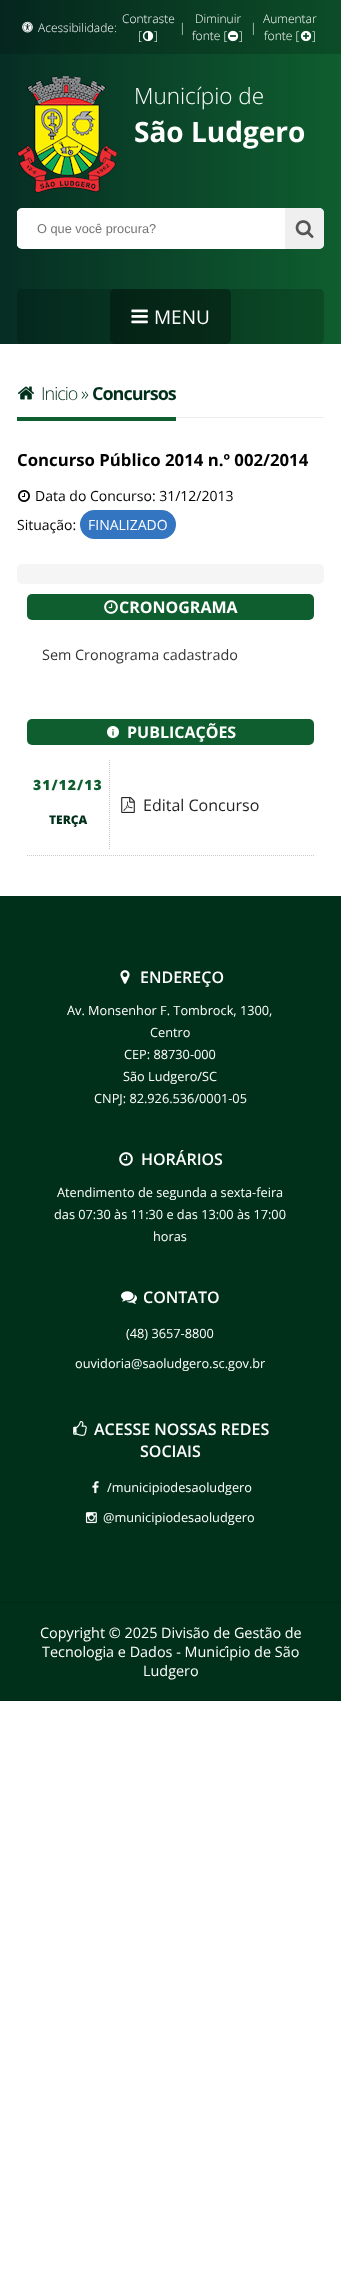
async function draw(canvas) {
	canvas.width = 341;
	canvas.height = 2291;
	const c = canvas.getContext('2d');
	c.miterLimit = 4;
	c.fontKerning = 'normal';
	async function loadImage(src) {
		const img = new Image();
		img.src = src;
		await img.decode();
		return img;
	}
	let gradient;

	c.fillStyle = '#fff';
	c.fillRect(0, 0, 341, 2291);
	gradient = c.createLinearGradient(0, 172, 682, 172);
	gradient.addColorStop(0, '#062e24');
	gradient.addColorStop(0.5, '#0f5e2f');
	gradient.addColorStop(1, '#0f5e2f');
	c.fillStyle = gradient;
	c.fillRect(0, 54, 341, 290);
	gradient = c.createLinearGradient(0, 172, 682, 172);
	gradient.addColorStop(0, '#05261e');
	gradient.addColorStop(0.5, '#0c4d27');
	gradient.addColorStop(1, '#0c4d27');
	c.fillStyle = gradient;
	c.fillRect(0, 0, 341, 54);
	c.drawImage(await loadImage('img1.png'), 22, 21, 11, 12);
	c.font = '300 12px Open Sans';
	c.fillStyle = '#fff';
	for (const [text, x, y] of [
		['Acessibilidade:', 38, 32],
		['Contraste', 122, 23],
		['[', 138, 40],
	]) {
		c.fillText(text, x, y);
	}
	c.drawImage(await loadImage('img2.png'), 142, 30, 12, 12);
	for (const [text, x, y] of [
		[']', 154, 40],
		['|', 179, 32],
		['Diminuir', 195, 23],
		['fonte [', 192, 40],
	]) {
		c.fillText(text, x, y);
	}
	c.drawImage(await loadImage('img3.png'), 227, 30, 12, 12);
	for (const [text, x, y] of [
		[']', 239, 40],
		['|', 250, 32],
		['Aumentar', 263, 23],
		['fonte [', 264, 40],
	]) {
		c.fillText(text, x, y);
	}
	c.drawImage(await loadImage('img4.png'), 300, 30, 12, 12);
	c.fillText(']', 312, 40);
	c.drawImage(await loadImage('img5.png'), 17, 76, 100, 117);
	c.font = '300 22.5px Open Sans';
	c.fillText('Município de', 134, 104);
	c.font = 'bold 28px Open Sans';
	c.fillText('São Ludgero', 134, 142);
	c.beginPath();
	c.roundRect(17, 208, 307, 41, 5);
	c.fill();
	c.fillRect(17, 211, 1, 35);
	c.font = '12.75px Liberation Sans';
	c.fillStyle = '#757575';
	c.fillText('O que você procura?', 37, 233);
	c.fillStyle = '#efefef';
	c.beginPath();
	c.roundRect(285, 208, 39, 41, [0, 5, 5, 0]);
	c.fill();
	c.drawImage(await loadImage('img6.png'), 295, 220, 19, 18);
	c.fillStyle = '#0000002e';
	c.beginPath();
	c.roundRect(17, 289, 307, 55, 5);
	c.fill();
	c.fillStyle = '#0000004d';
	c.beginPath();
	c.roundRect(110, 289, 121, 55, 5);
	c.fill();
	c.drawImage(await loadImage('img7.png'), 131, 309, 17, 15);
	c.font = '19px Open Sans';
	c.fillStyle = '#fff';
	c.fillText('MENU', 154, 324);
	c.fillStyle = '#ebedef';
	c.fillRect(176, 417, 148, 1);
	c.drawImage(await loadImage('img8.png'), 18, 386, 16, 14);
	c.letterSpacing = '-1px';
	c.font = '300 18px Open Sans';
	c.fillStyle = '#002f1a';
	c.fillText('Inicio »', 41, 400);
	c.font = 'bold 18px Open Sans';
	c.fillText('Concursos', 92, 400);
	c.fillStyle = '#0f5e2f';
	c.fillRect(17, 417, 159, 4);
	c.letterSpacing = '0px';
	c.font = 'bold 16.75px Open Sans';
	c.fillStyle = '#000';
	c.fillText('Concurso Público 2014 n.º 002/2014', 17, 466);
	c.drawImage(await loadImage('img9.png'), 18, 490, 12, 12);
	c.font = '14px Open Sans';
	c.fillText('Data do Concurso: 31/12/2013', 35, 501);
	c.fillText('Situação:', 17, 530);
	c.fillStyle = '#3475c1';
	c.beginPath();
	c.roundRect(80, 510, 96, 29, 14.5);
	c.fill();
	c.fillStyle = '#fff';
	c.fillText('FINALIZADO', 88, 530);
	c.fillStyle = '#f5f5f5';
	c.beginPath();
	c.roundRect(17, 564, 307, 20, 5);
	c.fill();
	c.fillStyle = '#0f5e2f';
	c.beginPath();
	c.roundRect(27, 594, 287, 26, 5);
	c.fill();
	c.drawImage(await loadImage('img10.png'), 104, 600, 14, 14);
	c.font = 'bold 16px Open Sans';
	c.fillStyle = '#fff';
	c.fillText('CRONOGRAMA', 119, 613);
	c.font = '14.4px Open Sans';
	c.fillStyle = '#333';
	c.fillText('Sem Cronograma cadastrado', 42, 660);
	c.fillStyle = '#0f5e2f';
	c.beginPath();
	c.roundRect(27, 719, 287, 26, 5);
	c.fill();
	c.drawImage(await loadImage('img11.png'), 107, 726, 12, 12);
	c.font = 'bold 16px Open Sans';
	c.fillStyle = '#fff';
	c.fillText('PUBLICAÇÕES', 127, 738);
	c.beginPath();
	c.moveTo(27, 855.5);
	c.lineTo(314, 855.5);
	c.strokeStyle = '#ccc';
	c.setLineDash([1, 1]);
	c.stroke();
	c.beginPath();
	c.moveTo(109.5, 760);
	c.lineTo(109.5, 850);
	c.stroke();
	c.letterSpacing = '1px';
	c.font = '800 14px Open Sans';
	c.fillStyle = '#0f5e2f';
	c.fillText('31/12/13', 33, 790);
	c.letterSpacing = '0px';
	c.font = '800 12px Open Sans';
	c.fillStyle = '#002f1a';
	c.fillText('TERÇA', 49, 824);
	c.drawImage(await loadImage('img12.png'), 121, 797, 14, 16);
	c.font = '16px Open Sans';
	c.fillStyle = '#252525';
	c.fillText('Edital Concurso', 143, 811);
	c.fillStyle = '#002f1a';
	c.fillRect(0, 896, 341, 804);
	c.drawImage(await loadImage('img13.png'), 120, 970, 10, 14);
	c.font = '600 16px Open Sans';
	c.fillStyle = '#fff';
	c.fillText('ENDEREÇO', 140, 983);
	c.font = '12.75px Open Sans';
	for (const [text, x, y] of [
		['Av. Monsenhor F. Tombrock, 1300,', 67, 1015],
		['Centro', 150, 1037],
		['CEP: 88730-000', 124, 1059],
		['São Ludgero/SC', 123, 1081],
		['CNPJ: 82.926.536/0001-05', 94, 1103],
	]) {
		c.fillText(text, x, y);
	}
	c.drawImage(await loadImage('img14.png'), 119, 1152, 14, 14);
	c.font = '600 16px Open Sans';
	c.fillText('HORÁRIOS', 141, 1165);
	c.font = '12.75px Open Sans';
	for (const [text, x, y] of [
		['Atendimento de segunda a sexta-feira', 57, 1197],
		['das 07:30 às 11:30 e das 13:00 às 17:00', 54, 1219],
		['horas', 153, 1241],
	]) {
		c.fillText(text, x, y);
	}
	c.drawImage(await loadImage('img15.png'), 121, 1291, 16, 13);
	c.font = '600 16px Open Sans';
	c.fillText('CONTATO', 143, 1303);
	c.font = '12.75px Open Sans';
	c.fillText('(48) 3657-8800', 126, 1338);
	c.fillText('ouvidoria@saoludgero.sc.gov.br', 75, 1368);
	c.drawImage(await loadImage('img16.png'), 73, 1421, 14, 15);
	c.font = '600 16px Open Sans';
	c.fillText('ACESSE NOSSAS REDES', 94, 1435);
	c.fillText('SOCIAIS', 140, 1457);
	c.drawImage(await loadImage('img17.png'), 92, 1481, 7, 13);
	c.font = '12.75px Open Sans';
	c.fillText('/municipiodesaoludgero', 107, 1492);
	c.drawImage(await loadImage('img18.png'), 85, 1512, 12, 12);
	c.fillText('@municipiodesaoludgero', 103, 1522);
	c.fillStyle = '#002816';
	c.fillRect(0, 1602, 341, 1);
	c.fillRect(0, 1700, 341, 1);
	c.font = '14.4px Open Sans';
	c.fillStyle = '#fff';
	for (const [text, x, y] of [
		['Copyright © 2025 Divisão de Gestão de', 40, 1638],
		['Tecnologia e Dados - Município de São', 42, 1657],
		['Ludgero', 143, 1676],
	]) {
		c.fillText(text, x, y);
	}
}

draw(document.querySelector('canvas'));
